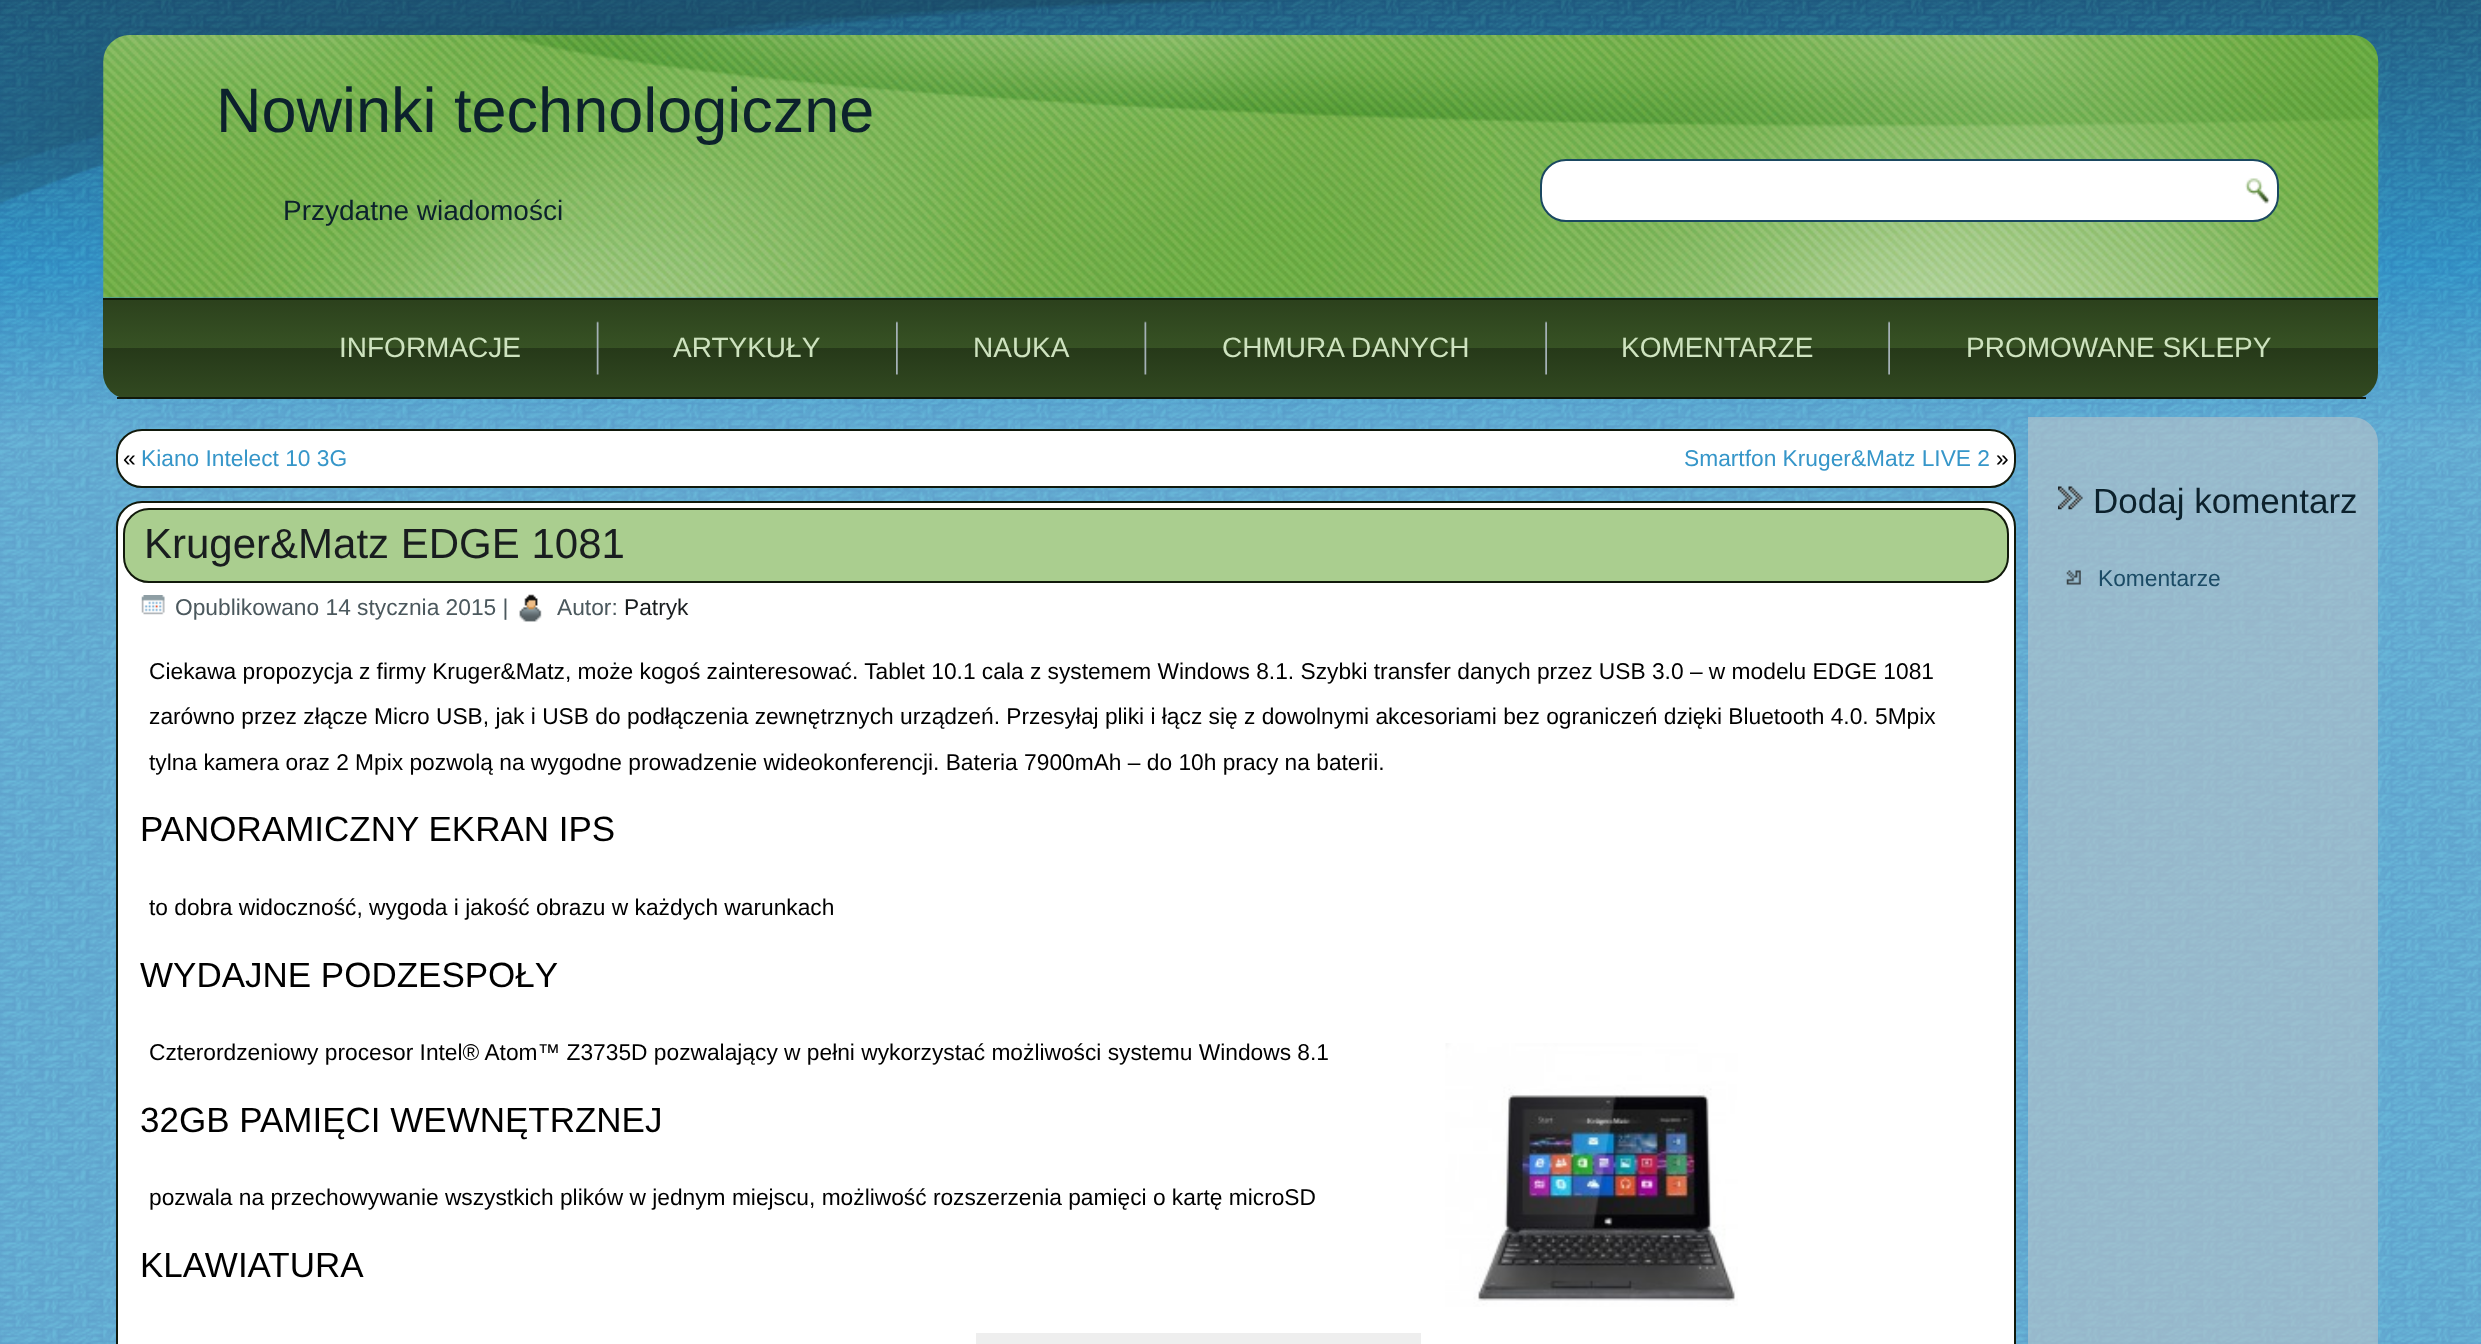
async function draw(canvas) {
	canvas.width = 2481;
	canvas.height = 1344;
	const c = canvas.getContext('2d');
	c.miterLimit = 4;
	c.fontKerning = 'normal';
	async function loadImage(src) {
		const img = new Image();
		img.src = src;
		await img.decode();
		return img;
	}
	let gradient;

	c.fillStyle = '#fff';
	c.fillRect(0, 0, 2481, 1344);
	c.drawImage(await loadImage('img1.png'), 0, 0, 2481, 1344);
	c.drawImage(await loadImage('img2.png'), 103, 35, 2276, 263);
	c.font = '63px Liberation Sans';
	c.fillStyle = '#0c212c';
	c.fillText('Nowinki technologiczne', 216, 132);
	c.font = '28px Liberation Sans';
	c.fillText('Przydatne wiadomości', 283, 220);
	c.fillStyle = '#fff';
	c.beginPath();
	c.roundRect(1541, 160, 737, 61, 25);
	c.fill();
	c.strokeStyle = '#1a4861';
	c.lineWidth = 2;
	c.stroke();
	c.drawImage(await loadImage('img3.png'), 2245, 178, 25, 26);
	gradient = c.createLinearGradient(1241, 297, 1241, 399);
	gradient.addColorStop(0, '#2b401c');
	gradient.addColorStop(0.5, '#375224');
	gradient.addColorStop(0.5, '#263919');
	gradient.addColorStop(1, '#324a21');
	c.fillStyle = gradient;
	c.beginPath();
	c.roundRect(103, 298, 2275, 101, [0, 0, 26, 26]);
	c.fill();
	c.fillStyle = '#11190b';
	c.fillRect(103, 298, 2275, 2);
	c.fillRect(117, 397, 2249, 2);
	c.fillStyle = '#cee3bf';
	c.fillText('INFORMACJE', 339, 357);
	c.drawImage(await loadImage('img4.png'), 596, 321, 3, 54);
	c.fillText('ARTYKUŁY', 673, 357);
	c.drawImage(await loadImage('img5.png'), 896, 321, 2, 54);
	c.fillText('NAUKA', 973, 357);
	c.drawImage(await loadImage('img6.png'), 1144, 321, 3, 54);
	c.fillText('CHMURA DANYCH', 1222, 357);
	c.drawImage(await loadImage('img7.png'), 1545, 321, 2, 54);
	c.fillText('KOMENTARZE', 1621, 357);
	c.drawImage(await loadImage('img7.png'), 1888, 321, 2, 54);
	c.fillText('PROMOWANE SKLEPY', 1966, 357);
	c.fillStyle = '#fff';
	c.beginPath();
	c.roundRect(117, 430, 1898, 57, 25);
	c.fill();
	c.strokeStyle = '#11190b';
	c.stroke();
	c.font = '22.75px Liberation Sans';
	c.fillStyle = '#000';
	c.fillText('«', 123, 466);
	c.fillStyle = '#3696c9';
	c.fillText('Kiano Intelect 10 3G', 141, 466);
	c.fillText('Smartfon Kruger&Matz LIVE 2', 1684, 466);
	c.fillStyle = '#000';
	c.fillText('»', 1996, 466);
	c.fillStyle = '#fff';
	c.beginPath();
	c.roundRect(117, 502, 1898, 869, 25);
	c.fill();
	c.stroke();
	c.fillStyle = '#aace8f';
	c.beginPath();
	c.roundRect(124, 509, 1884, 73, 25);
	c.fill();
	c.stroke();
	c.font = '42px Liberation Sans';
	c.fillStyle = '#191d1f';
	c.fillText('Kruger&Matz EDGE 1081', 144, 558);
	c.drawImage(await loadImage('img8.png'), 141, 595, 24, 20);
	c.font = '22.75px Liberation Sans';
	c.fillStyle = '#4b585d';
	c.fillText('Opublikowano 14 stycznia 2015 |', 175, 615);
	c.drawImage(await loadImage('img9.png'), 519, 594, 23, 28);
	c.fillText('Autor:', 557, 615);
	c.fillStyle = '#191d1f';
	c.fillText('Patryk', 624, 615);
	c.fillStyle = '#000';
	for (const [text, x, y] of [
		['Ciekawa propozycja z firmy Kruger&Matz, może kogoś zainteresować. Tablet 10.1 cala z systemem Windows 8.1. Szybki transfer danych przez USB 3.0 – w modelu EDGE 1081', 149, 679],
		['zarówno przez złącze Micro USB, jak i USB do podłączenia zewnętrznych urządzeń. Przesyłaj pliki i łącz się z dowolnymi akcesoriami bez ograniczeń dzięki Bluetooth 4.0. 5Mpix', 149, 724],
		['tylna kamera oraz 2 Mpix pozwolą na wygodne prowadzenie wideokonferencji. Bateria 7900mAh – do 10h pracy na baterii.', 149, 770],
	]) {
		c.fillText(text, x, y);
	}
	c.font = '35px Liberation Sans';
	c.fillText('PANORAMICZNY EKRAN IPS', 140, 841);
	c.font = '22.75px Liberation Sans';
	c.fillText('to dobra widoczność, wygoda i jakość obrazu w każdych warunkach', 149, 915);
	c.font = '35px Liberation Sans';
	c.fillText('WYDAJNE PODZESPOŁY', 140, 987);
	c.font = '22.75px Liberation Sans';
	c.fillText('Czterordzeniowy procesor Intel® Atom™ Z3735D pozwalający w pełni wykorzystać możliwości systemu Windows 8.1', 149, 1060);
	c.drawImage(await loadImage('img10.png'), 1445, 1043, 293, 264);
	c.font = '35px Liberation Sans';
	c.fillText('32GB PAMIĘCI WEWNĘTRZNEJ', 140, 1132);
	c.font = '22.75px Liberation Sans';
	c.fillText('pozwala na przechowywanie wszystkich plików w jednym miejscu, możliwość rozszerzenia pamięci o kartę microSD', 149, 1205);
	c.font = '35px Liberation Sans';
	c.fillText('KLAWIATURA', 140, 1277);
	c.fillStyle = '#eee';
	c.fillRect(976, 1333, 445, 11);
	c.fillStyle = '#bbc5c999';
	c.beginPath();
	c.moveTo(2028, 417);
	c.lineTo(2352, 417);
	c.bezierCurveTo(2366.5, 417, 2378, 428.5, 2378, 443);
	c.lineTo(2378, 1344);
	c.bezierCurveTo(2378, 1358.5, 2366.5, 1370, 2352, 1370);
	c.lineTo(2028, 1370);
	c.closePath();
	c.fill();
	c.drawImage(await loadImage('img11.png'), 2058, 486, 25, 24);
	c.fillStyle = '#0c212c';
	c.fillText('Dodaj komentarz', 2093, 513);
	c.drawImage(await loadImage('img12.png'), 2066, 570, 15, 15);
	c.font = '22.75px Liberation Sans';
	c.fillStyle = '#1b4b65';
	c.fillText('Komentarze', 2098, 586);
}

draw(document.querySelector('canvas'));
